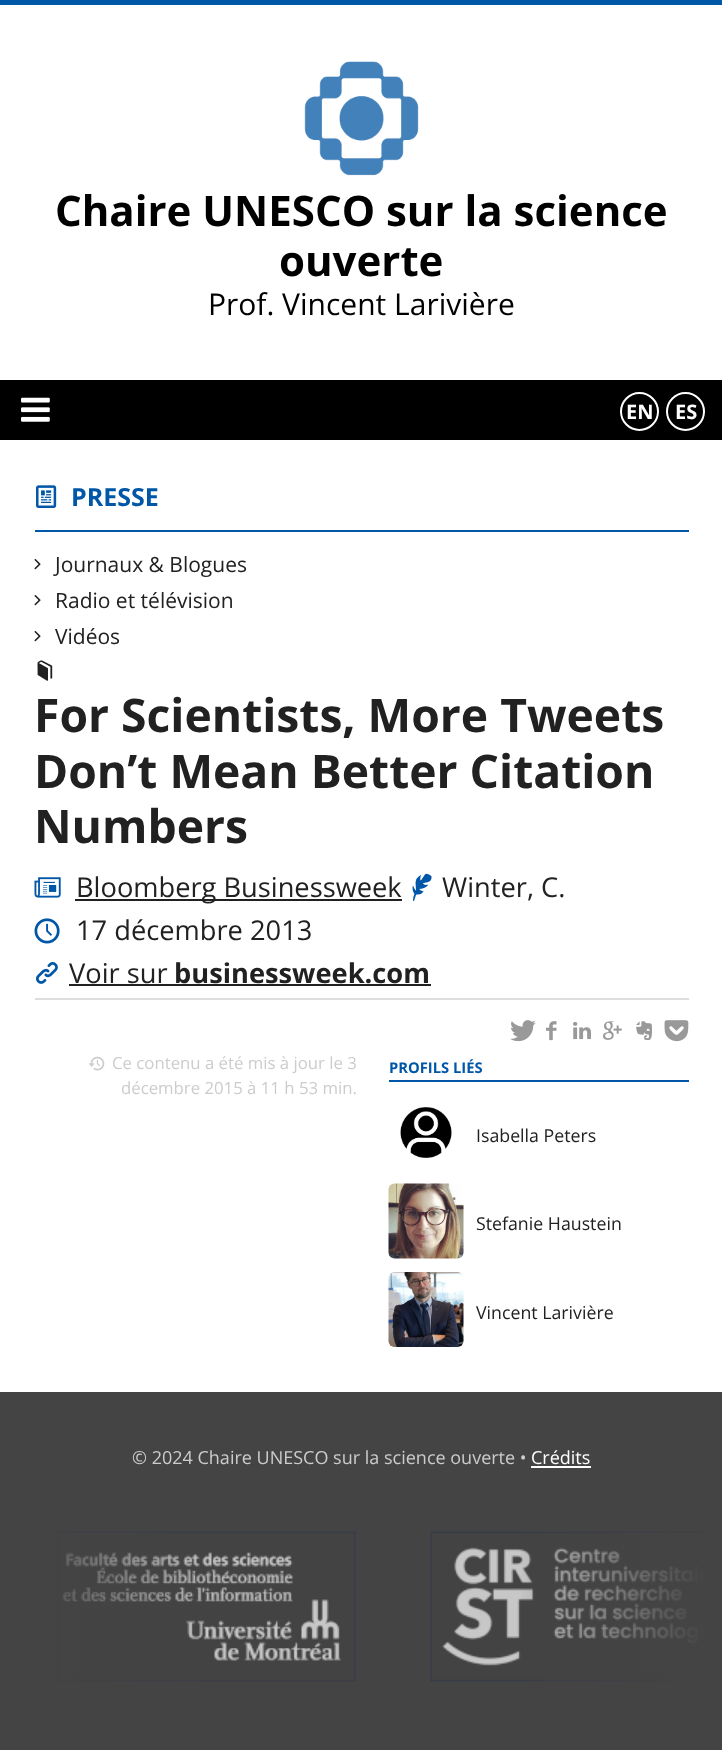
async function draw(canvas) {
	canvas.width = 722;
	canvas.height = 1750;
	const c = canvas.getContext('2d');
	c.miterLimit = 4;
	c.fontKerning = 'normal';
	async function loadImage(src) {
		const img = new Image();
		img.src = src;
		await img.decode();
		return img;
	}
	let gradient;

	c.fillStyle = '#fff';
	c.fillRect(0, 0, 722, 1750);
	c.fillStyle = '#0056a7';
	c.fillRect(0, 0, 722, 5);
	c.drawImage(await loadImage('img1.png'), 304, 61, 115, 115);
	c.font = 'bold 42px Open Sans';
	c.fillStyle = '#000';
	c.fillText('Chaire UNESCO sur la science', 55, 226);
	c.fillText('ouverte', 279, 276);
	c.font = '30px Open Sans';
	c.fillText('Prof. Vincent Larivière', 208, 315);
	c.fillRect(0, 380, 722, 60);
	c.drawImage(await loadImage('img2.png'), 21, 397, 29, 25);
	c.beginPath();
	c.arc(639.5, 411.5, 18.5, 0, 2 * Math.PI);
	c.strokeStyle = '#fff';
	c.lineWidth = 2;
	c.stroke();
	c.font = 'bold 20px Open Sans';
	c.fillStyle = '#fff';
	c.fillText('EN', 626, 419);
	c.beginPath();
	c.arc(685.5, 411.5, 18.5, 0, 2 * Math.PI);
	c.stroke();
	c.fillText('ES', 675, 419);
	c.fillStyle = '#0056a7';
	c.fillRect(35, 530, 654, 2);
	c.drawImage(await loadImage('img3.png'), 36, 485, 21, 23);
	c.font = 'bold 25px Open Sans';
	c.fillText('PRESSE', 71, 506);
	c.drawImage(await loadImage('img4.png'), 34, 559, 7, 11);
	c.font = '21px Open Sans';
	c.fillStyle = '#212121';
	c.fillText('Journaux & Blogues', 55, 572);
	c.drawImage(await loadImage('img4.png'), 34, 595, 7, 11);
	c.fillText('Radio et télévision', 55, 608);
	c.drawImage(await loadImage('img4.png'), 34, 631, 7, 11);
	c.fillText('Vidéos', 55, 644);
	c.drawImage(await loadImage('img5.png'), 37, 660, 16, 21);
	c.font = 'bold 46.25px Open Sans';
	for (const [text, x, y] of [
		['For Scientists, More Tweets', 34, 732],
		['Don’t Mean Better Citation', 34, 788],
		['Numbers', 34, 843],
	]) {
		c.fillText(text, x, y);
	}
	c.drawImage(await loadImage('img6.png'), 34, 877, 27, 21);
	c.fillRect(75, 899, 327, 2);
	c.font = '27.25px Open Sans';
	c.fillText('Bloomberg Businessweek', 76, 897);
	c.drawImage(await loadImage('img7.png'), 412, 873, 20, 28);
	c.fillText('Winter, C.', 442, 897);
	c.drawImage(await loadImage('img8.png'), 34, 918, 26, 26);
	c.fillText('17 décembre 2013', 76, 940);
	c.drawImage(await loadImage('img9.png'), 36, 962, 22, 22);
	c.fillText('Voir sur', 69, 983);
	c.fillRect(69, 984, 362, 2);
	c.font = 'bold 27.25px Open Sans';
	c.fillText('businessweek.com', 174, 983);
	c.fillStyle = '#ddd';
	c.fillRect(35, 998, 654, 2);
	c.drawImage(await loadImage('img10.png'), 510, 1020, 26, 22);
	c.drawImage(await loadImage('img11.png'), 546, 1021, 11, 20);
	c.drawImage(await loadImage('img12.png'), 573, 1021, 18, 19);
	c.drawImage(await loadImage('img13.png'), 603, 1021, 19, 19);
	c.drawImage(await loadImage('img14.png'), 636, 1021, 16, 20);
	c.drawImage(await loadImage('img15.png'), 664, 1020, 25, 22);
	c.drawImage(await loadImage('img16.png'), 88, 1056, 17, 15);
	c.font = '16.75px Open Sans';
	c.fillStyle = '#ccc';
	c.fillText('Ce contenu a été mis à jour le 3', 112, 1069);
	c.fillText('décembre 2015 à 11 h 53 min.', 121, 1094);
	c.fillStyle = '#0056a7';
	c.fillRect(389, 1080, 300, 2);
	c.font = 'bold 14.75px Open Sans';
	c.fillText('PROFILS LIÉS', 389, 1073);
	c.drawImage(await loadImage('img17.png'), 400, 1107, 52, 51);
	c.font = '17.75px Open Sans';
	c.fillStyle = '#212121';
	c.fillText('Isabella Peters', 476, 1142);
	c.drawImage(await loadImage('img18.png'), 388, 1183, 76, 76);
	c.fillText('Stefanie Haustein', 476, 1230);
	c.drawImage(await loadImage('img19.png'), 388, 1272, 76, 75);
	c.fillText('Vincent Larivière', 476, 1319);
	c.fillStyle = '#444';
	c.fillRect(0, 1392, 722, 358);
	c.font = '18px Open Sans';
	c.fillStyle = '#ccc';
	c.fillText('© 2024 Chaire UNESCO sur la science ouverte •', 132, 1464);
	c.fillStyle = '#fff';
	c.fillText('Crédits', 531, 1464);
	c.fillRect(531, 1466, 60, 2);
	c.drawImage(await loadImage('img20.png'), 55, 1531, 301, 151);
	c.drawImage(await loadImage('img21.png'), 430, 1531, 275, 151);
	gradient = c.createLinearGradient(18, 1607, 206, 1607);
	gradient.addColorStop(0, '#444');
	gradient.addColorStop(1, '#44444400');
	c.fillStyle = gradient;
	c.fillRect(55, 1532, 146, 150);
	gradient = c.createLinearGradient(705, 1607, 517, 1607);
	gradient.addColorStop(0, '#444');
	gradient.addColorStop(1, '#44444400');
	c.fillStyle = gradient;
	c.fillRect(521, 1532, 184, 150);
}

draw(document.querySelector('canvas'));
